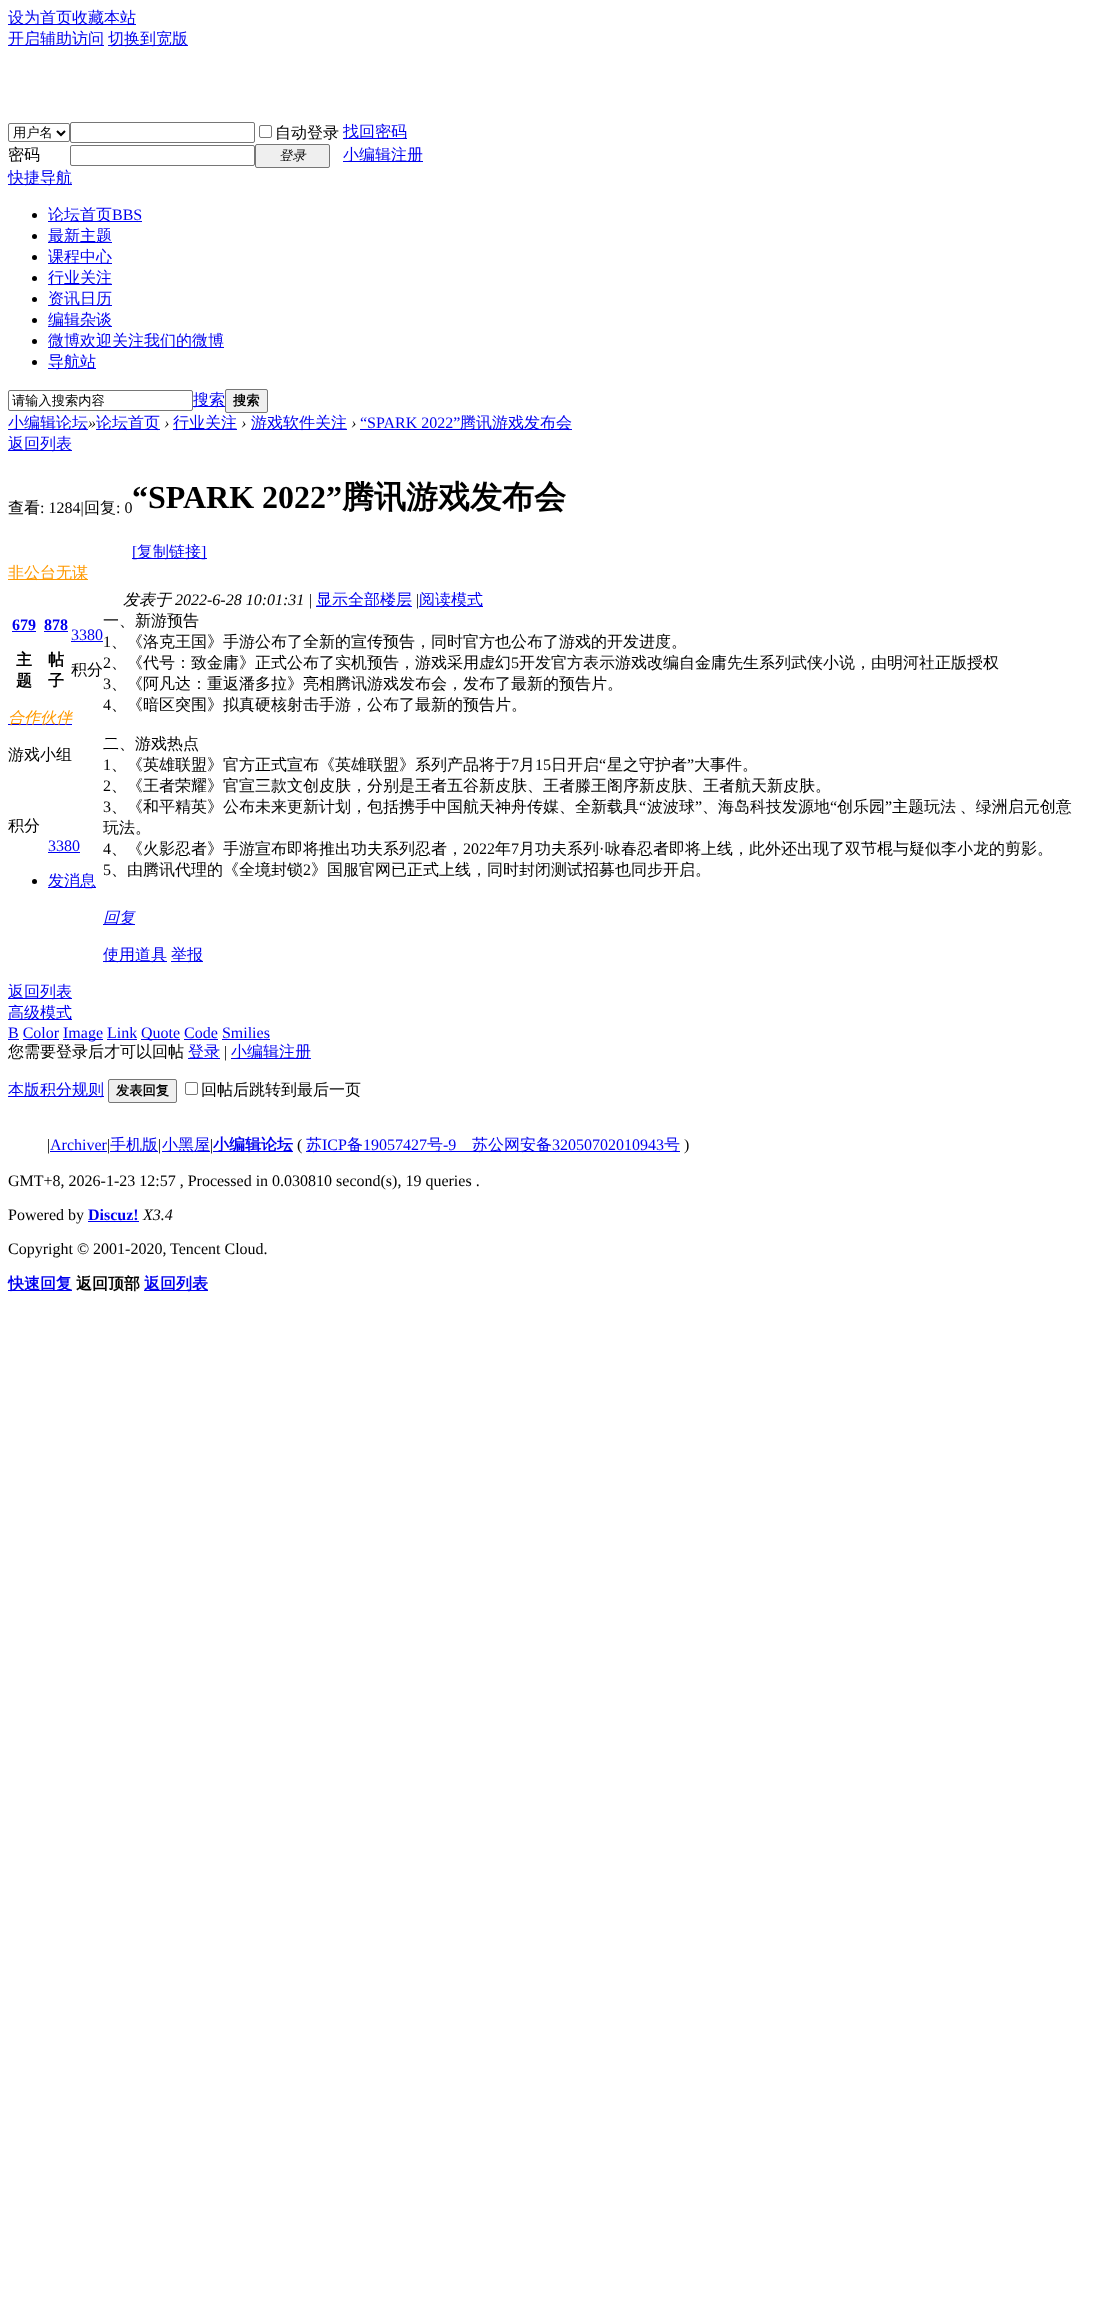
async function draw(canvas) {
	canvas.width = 1094;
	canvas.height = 2305;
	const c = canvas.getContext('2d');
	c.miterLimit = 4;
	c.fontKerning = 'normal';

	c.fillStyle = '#fff';
	c.fillRect(0, 0, 1094, 2305);
	c.fillStyle = '#00e';
	c.fillRect(8, 24, 128, 1);
	c.font = '500 16px WenQuanYi Zen Hei';
	c.fillText('设为首页收藏本站', 8, 23);
	c.fillRect(8, 45, 96, 1);
	c.fillText('开启辅助访问', 8, 44);
	c.fillRect(108, 45, 80, 1);
	c.fillText('切换到宽版', 108, 44);
	c.beginPath();
	c.roundRect(8.5, 123.5, 61, 18, 1.5);
	c.strokeStyle = '#767676';
	c.stroke();
	c.beginPath();
	c.moveTo(57, 131);
	c.lineTo(61, 135);
	c.lineTo(65, 131);
	c.strokeStyle = '#000';
	c.lineWidth = 2;
	c.stroke();
	c.font = '500 13.25px WenQuanYi Zen Hei';
	c.fillStyle = '#000';
	c.fillText('用户名', 13, 137);
	c.beginPath();
	c.roundRect(70.5, 122.5, 184, 20, 1.5);
	c.strokeStyle = '#767676';
	c.lineWidth = 1;
	c.stroke();
	c.beginPath();
	c.roundRect(259.5, 125.5, 12, 12, 1.5);
	c.stroke();
	c.font = '500 16px WenQuanYi Zen Hei';
	c.fillText('自动登录', 275, 138);
	c.fillStyle = '#00e';
	c.fillRect(343, 138, 64, 1);
	c.fillText('找回密码', 343, 137);
	c.fillStyle = '#000';
	c.fillText('密码', 8, 160);
	c.beginPath();
	c.roundRect(70.5, 145.5, 184, 20, 1.5);
	c.stroke();
	c.fillStyle = '#efefef';
	c.beginPath();
	c.roundRect(255.5, 144.5, 74, 23, 1.5);
	c.fill();
	c.stroke();
	c.font = 'italic 500 13.25px WenQuanYi Zen Hei';
	c.fillStyle = '#000';
	c.fillText('登录', 279, 160);
	c.fillStyle = '#00e';
	c.fillRect(343, 161, 80, 1);
	c.font = '500 16px WenQuanYi Zen Hei';
	c.fillText('小编辑注册', 343, 160);
	c.fillRect(8, 184, 64, 1);
	c.fillText('快捷导航', 8, 183);
	c.fillStyle = '#000';
	c.beginPath();
	c.arc(34.5, 215.5, 2.5, 0, 2 * Math.PI);
	c.fill();
	c.fillStyle = '#00e';
	c.fillRect(48, 221, 94, 1);
	c.fillText('论坛首页', 48, 220);
	c.font = '16px Liberation Serif';
	c.fillText('BBS', 112, 220);
	c.fillStyle = '#000';
	c.beginPath();
	c.arc(34.5, 236.5, 2.5, 0, 2 * Math.PI);
	c.fill();
	c.fillStyle = '#00e';
	c.fillRect(48, 242, 64, 1);
	c.font = '500 16px WenQuanYi Zen Hei';
	c.fillText('最新主题', 48, 241);
	c.fillStyle = '#000';
	c.beginPath();
	c.arc(34.5, 257.5, 2.5, 0, 2 * Math.PI);
	c.fill();
	c.fillStyle = '#00e';
	c.fillRect(48, 263, 64, 1);
	c.fillText('课程中心', 48, 262);
	c.fillStyle = '#000';
	c.beginPath();
	c.arc(34.5, 278.5, 2.5, 0, 2 * Math.PI);
	c.fill();
	c.fillStyle = '#00e';
	c.fillRect(48, 284, 64, 1);
	c.fillText('行业关注', 48, 283);
	c.fillStyle = '#000';
	c.beginPath();
	c.arc(34.5, 299.5, 2.5, 0, 2 * Math.PI);
	c.fill();
	c.fillStyle = '#00e';
	c.fillRect(48, 305, 64, 1);
	c.fillText('资讯日历', 48, 304);
	c.fillStyle = '#000';
	c.beginPath();
	c.arc(34.5, 320.5, 2.5, 0, 2 * Math.PI);
	c.fill();
	c.fillStyle = '#00e';
	c.fillRect(48, 326, 64, 1);
	c.fillText('编辑杂谈', 48, 325);
	c.fillStyle = '#000';
	c.beginPath();
	c.arc(34.5, 341.5, 2.5, 0, 2 * Math.PI);
	c.fill();
	c.fillStyle = '#00e';
	c.fillRect(48, 347, 176, 1);
	c.fillText('微博欢迎关注我们的微博', 48, 346);
	c.fillStyle = '#000';
	c.beginPath();
	c.arc(34.5, 362.5, 2.5, 0, 2 * Math.PI);
	c.fill();
	c.fillStyle = '#00e';
	c.fillRect(48, 368, 48, 1);
	c.fillText('导航站', 48, 367);
	c.beginPath();
	c.roundRect(8.5, 390.5, 184, 20, 1.5);
	c.stroke();
	c.font = '500 13.25px WenQuanYi Zen Hei';
	c.fillStyle = '#000';
	c.fillText('请输入搜索内容', 12, 405);
	c.fillStyle = '#00e';
	c.fillRect(193, 406, 32, 1);
	c.font = '500 16px WenQuanYi Zen Hei';
	c.fillText('搜索', 193, 405);
	c.fillStyle = '#efefef';
	c.beginPath();
	c.roundRect(225.5, 389.5, 42, 23, 1.5);
	c.fill();
	c.stroke();
	c.font = 'bold 13.25px WenQuanYi Zen Hei';
	c.fillStyle = '#000';
	c.fillText('搜索', 233, 405);
	c.fillStyle = '#00e';
	c.fillRect(8, 429, 80, 1);
	c.font = '500 16px WenQuanYi Zen Hei';
	c.fillText('小编辑论坛', 8, 428);
	c.font = 'italic 16px Liberation Serif';
	c.fillStyle = '#000';
	c.fillText('»', 88, 428);
	c.fillStyle = '#00e';
	c.fillRect(96, 429, 64, 1);
	c.font = '500 16px WenQuanYi Zen Hei';
	c.fillText('论坛首页', 96, 428);
	c.font = 'italic 16px Liberation Serif';
	c.fillStyle = '#000';
	c.fillText('›', 164, 428);
	c.fillStyle = '#00e';
	c.fillRect(173, 429, 64, 1);
	c.font = '500 16px WenQuanYi Zen Hei';
	c.fillText('行业关注', 173, 428);
	c.font = 'italic 16px Liberation Serif';
	c.fillStyle = '#000';
	c.fillText('›', 241, 428);
	c.fillStyle = '#00e';
	c.fillRect(251, 429, 96, 1);
	c.font = '500 16px WenQuanYi Zen Hei';
	c.fillText('游戏软件关注', 251, 428);
	c.font = 'italic 16px Liberation Serif';
	c.fillStyle = '#000';
	c.fillText('›', 351, 428);
	c.font = '16px Liberation Serif';
	c.fillStyle = '#00e';
	c.fillText('“SPARK 2022”', 360, 428);
	c.fillRect(360, 429, 212, 1);
	c.font = '500 16px WenQuanYi Zen Hei';
	c.fillText('腾讯游戏发布会', 460, 428);
	c.fillRect(8, 450, 64, 1);
	c.fillText('返回列表', 8, 449);
	c.fillStyle = '#000';
	c.fillText('查看', 8, 513);
	c.font = '16px Liberation Serif';
	c.fillText(': 1284|', 40, 513);
	c.font = '500 16px WenQuanYi Zen Hei';
	c.fillText('回复', 84, 513);
	c.font = '16px Liberation Serif';
	c.fillText(': 0', 116, 513);
	c.font = 'bold 32px Liberation Serif';
	c.fillText('“SPARK 2022”', 132, 508);
	c.font = 'bold 32px WenQuanYi Zen Hei';
	c.fillText('腾讯游戏发布会', 342, 508);
	c.fillStyle = '#00e';
	c.fillRect(132, 558, 75, 1);
	c.font = '16px Liberation Serif';
	c.fillText('[', 132, 557);
	c.font = '500 16px WenQuanYi Zen Hei';
	c.fillText('复制链接', 137, 557);
	c.font = '16px Liberation Serif';
	c.fillText(']', 201, 557);
	c.fillStyle = '#f90';
	c.fillRect(8, 579, 80, 1);
	c.font = '500 16px WenQuanYi Zen Hei';
	c.fillText('非公台无谋', 8, 578);
	c.font = 'bold 16px Liberation Serif';
	c.fillStyle = '#00e';
	c.fillText('679', 12, 630);
	c.fillRect(12, 631, 24, 1);
	c.font = 'bold 16px WenQuanYi Zen Hei';
	c.fillStyle = '#000';
	c.fillText('主', 16, 665);
	c.fillText('题', 16, 686);
	c.font = 'bold 16px Liberation Serif';
	c.fillStyle = '#00e';
	c.fillText('878', 44, 630);
	c.fillRect(44, 631, 24, 1);
	c.font = 'bold 16px WenQuanYi Zen Hei';
	c.fillStyle = '#000';
	c.fillText('帖', 48, 665);
	c.fillText('子', 48, 686);
	c.font = '16px Liberation Serif';
	c.fillStyle = '#00e';
	c.fillText('3380', 71, 640);
	c.fillRect(71, 641, 32, 1);
	c.font = '500 16px WenQuanYi Zen Hei';
	c.fillStyle = '#000';
	c.fillText('积分', 71, 675);
	c.fillStyle = '#00e';
	c.fillRect(8, 724, 64, 1);
	c.font = 'italic 500 16px WenQuanYi Zen Hei';
	c.fillStyle = '#f90';
	c.fillText('合作伙伴', 8, 723);
	c.font = '500 16px WenQuanYi Zen Hei';
	c.fillStyle = '#000';
	c.fillText('游戏小组', 8, 760);
	c.fillText('积分', 8, 831);
	c.font = '16px Liberation Serif';
	c.fillStyle = '#00e';
	c.fillText('3380', 48, 851);
	c.fillRect(48, 852, 32, 1);
	c.fillStyle = '#000';
	c.beginPath();
	c.arc(34.5, 881.5, 2.5, 0, 2 * Math.PI);
	c.fill();
	c.fillStyle = '#00e';
	c.fillRect(48, 887, 48, 1);
	c.font = '500 16px WenQuanYi Zen Hei';
	c.fillText('发消息', 48, 886);
	c.font = 'italic 500 16px WenQuanYi Zen Hei';
	c.fillStyle = '#000';
	c.fillText('发表于', 123, 605);
	c.font = 'italic 16px Liberation Serif';
	c.fillText('2022-6-28 10:01:31', 175, 605);
	c.font = '16px Liberation Serif';
	c.fillText('|', 309, 605);
	c.fillStyle = '#00e';
	c.fillRect(316, 606, 96, 1);
	c.font = '500 16px WenQuanYi Zen Hei';
	c.fillText('显示全部楼层', 316, 605);
	c.font = '16px Liberation Serif';
	c.fillStyle = '#000';
	c.fillText('|', 416, 605);
	c.fillStyle = '#00e';
	c.fillRect(419, 606, 64, 1);
	c.font = '500 16px WenQuanYi Zen Hei';
	c.fillText('阅读模式', 419, 605);
	c.fillStyle = '#000';
	c.fillText('一、新游预告', 103, 626);
	c.font = '16px Liberation Serif';
	c.fillText('1', 103, 647);
	c.font = '500 16px WenQuanYi Zen Hei';
	c.fillText('、《洛克王国》手游公布了全新的宣传预告，同时官方也公布了游戏的开发进度。', 111, 647);
	c.font = '16px Liberation Serif';
	c.fillText('2', 103, 668);
	c.font = '500 16px WenQuanYi Zen Hei';
	c.fillText('、《代号：致金庸》正式公布了实机预告，游戏采用虚幻', 111, 668);
	c.font = '16px Liberation Serif';
	c.fillText('5', 511, 668);
	c.font = '500 16px WenQuanYi Zen Hei';
	c.fillText('开发官方表示游戏改编自金庸先生系列武侠小说，由明河社正版授权', 519, 668);
	c.font = '16px Liberation Serif';
	c.fillText('3', 103, 689);
	c.font = '500 16px WenQuanYi Zen Hei';
	c.fillText('、《阿凡达：重返潘多拉》亮相腾讯游戏发布会，发布了最新的预告片。', 111, 689);
	c.font = '16px Liberation Serif';
	c.fillText('4', 103, 710);
	c.font = '500 16px WenQuanYi Zen Hei';
	c.fillText('、《暗区突围》拟真硬核射击手游，公布了最新的预告片。', 111, 710);
	c.fillText('二、游戏热点', 103, 749);
	c.font = '16px Liberation Serif';
	c.fillText('1', 103, 770);
	c.font = '500 16px WenQuanYi Zen Hei';
	c.fillText('、《英雄联盟》官方正式宣布《英雄联盟》系列产品将于', 111, 770);
	c.font = '16px Liberation Serif';
	c.fillText('7', 511, 770);
	c.font = '500 16px WenQuanYi Zen Hei';
	c.fillText('月', 519, 770);
	c.font = '16px Liberation Serif';
	c.fillText('15', 535, 770);
	c.font = '500 16px WenQuanYi Zen Hei';
	c.fillText('日开启', 551, 770);
	c.font = '16px Liberation Serif';
	c.fillText('“', 599, 770);
	c.font = '500 16px WenQuanYi Zen Hei';
	c.fillText('星之守护者', 607, 770);
	c.font = '16px Liberation Serif';
	c.fillText('”', 687, 770);
	c.font = '500 16px WenQuanYi Zen Hei';
	c.fillText('大事件。', 694, 770);
	c.font = '16px Liberation Serif';
	c.fillText('2', 103, 791);
	c.font = '500 16px WenQuanYi Zen Hei';
	c.fillText('、《王者荣耀》官宣三款文创皮肤，分别是王者五谷新皮肤、王者滕王阁序新皮肤、王者航天新皮肤。', 111, 791);
	c.font = '16px Liberation Serif';
	c.fillText('3', 103, 812);
	c.font = '500 16px WenQuanYi Zen Hei';
	c.fillText('、《和平精英》公布未来更新计划，包括携手中国航天神舟传媒、全新载具', 111, 812);
	c.font = '16px Liberation Serif';
	c.fillText('“', 639, 812);
	c.font = '500 16px WenQuanYi Zen Hei';
	c.fillText('波波球', 647, 812);
	c.font = '16px Liberation Serif';
	c.fillText('”', 695, 812);
	c.font = '500 16px WenQuanYi Zen Hei';
	c.fillText('、海岛科技发源地', 702, 812);
	c.font = '16px Liberation Serif';
	c.fillText('“', 830, 812);
	c.font = '500 16px WenQuanYi Zen Hei';
	c.fillText('创乐园', 837, 812);
	c.font = '16px Liberation Serif';
	c.fillText('”', 885, 812);
	c.wordSpacing = '-1px';
	c.font = '500 16px WenQuanYi Zen Hei';
	c.fillText('主题玩法 、绿洲启元创意', 892, 812);
	c.wordSpacing = '0px';
	c.fillText('玩法。', 103, 833);
	c.font = '16px Liberation Serif';
	c.fillText('4', 103, 854);
	c.font = '500 16px WenQuanYi Zen Hei';
	c.fillText('、《火影忍者》手游宣布即将推出功夫系列忍者，', 111, 854);
	c.font = '16px Liberation Serif';
	c.fillText('2022', 463, 854);
	c.font = '500 16px WenQuanYi Zen Hei';
	c.fillText('年', 495, 854);
	c.font = '16px Liberation Serif';
	c.fillText('7', 511, 854);
	c.font = '500 16px WenQuanYi Zen Hei';
	c.fillText('月功夫系列', 519, 854);
	c.font = '16px Liberation Serif';
	c.fillText('·', 599, 854);
	c.font = '500 16px WenQuanYi Zen Hei';
	c.fillText('咏春忍者即将上线，此外还出现了双节棍与疑似李小龙的剪影。', 605, 854);
	c.font = '16px Liberation Serif';
	c.fillText('5', 103, 875);
	c.font = '500 16px WenQuanYi Zen Hei';
	c.fillText('、由腾讯代理的《全境封锁', 111, 875);
	c.font = '16px Liberation Serif';
	c.fillText('2', 303, 875);
	c.font = '500 16px WenQuanYi Zen Hei';
	c.fillText('》国服官网已正式上线，同时封闭测试招募也同步开启。', 311, 875);
	c.fillStyle = '#00e';
	c.fillRect(103, 924, 32, 1);
	c.font = 'italic 500 16px WenQuanYi Zen Hei';
	c.fillText('回复', 103, 923);
	c.fillRect(103, 961, 64, 1);
	c.font = '500 16px WenQuanYi Zen Hei';
	c.fillText('使用道具', 103, 960);
	c.fillRect(171, 961, 32, 1);
	c.fillText('举报', 171, 960);
	c.fillRect(8, 998, 64, 1);
	c.fillText('返回列表', 8, 997);
	c.fillRect(8, 1019, 64, 1);
	c.fillText('高级模式', 8, 1018);
	c.font = '16px Liberation Serif';
	c.fillText('B Color', 8, 1038);
	c.fillRect(8, 1039, 11, 1);
	c.fillRect(63, 1039, 40, 1);
	c.fillText('Image Link', 63, 1038);
	c.fillRect(141, 1039, 39, 1);
	c.fillText('Quote Code Smilies', 141, 1038);
	for (const [x, y, w, h, color] of [
		[23, 1039, 36, 1, '#00e'],
		[107, 1039, 30, 1, '#00e'],
		[184, 1039, 34, 1, '#00e'],
		[222, 1039, 48, 1, '#00e'],
	]) {
		c.fillStyle = color;
		c.fillRect(x, y, w, h);
	}
	c.font = '500 16px WenQuanYi Zen Hei';
	c.fillStyle = '#000';
	c.fillText('您需要登录后才可以回帖', 8, 1057);
	c.fillStyle = '#00e';
	c.fillRect(188, 1058, 32, 1);
	c.fillText('登录', 188, 1057);
	c.font = '16px Liberation Serif';
	c.fillStyle = '#000';
	c.fillText('|', 224, 1057);
	c.fillStyle = '#00e';
	c.fillRect(231, 1058, 80, 1);
	c.font = '500 16px WenQuanYi Zen Hei';
	c.fillText('小编辑注册', 231, 1057);
	c.fillRect(8, 1096, 96, 1);
	c.fillText('本版积分规则', 8, 1095);
	c.fillStyle = '#efefef';
	c.beginPath();
	c.roundRect(108.5, 1079.5, 68, 23, 1.5);
	c.fill();
	c.stroke();
	c.font = 'bold 13.25px WenQuanYi Zen Hei';
	c.fillStyle = '#000';
	c.fillText('发表回复', 116, 1095);
	c.beginPath();
	c.roundRect(185.5, 1082.5, 12, 12, 1.5);
	c.stroke();
	c.font = '500 16px WenQuanYi Zen Hei';
	c.fillText('回帖后跳转到最后一页', 201, 1095);
	c.font = '16px Liberation Serif';
	c.fillText('|', 47, 1150);
	c.fillStyle = '#00e';
	c.fillText('Archiver', 50, 1150);
	c.fillRect(50, 1151, 57, 1);
	c.fillStyle = '#000';
	c.fillText('|', 107, 1150);
	c.fillStyle = '#00e';
	c.fillRect(110, 1151, 48, 1);
	c.font = '500 16px WenQuanYi Zen Hei';
	c.fillText('手机版', 110, 1150);
	c.font = '16px Liberation Serif';
	c.fillStyle = '#000';
	c.fillText('|', 158, 1150);
	c.fillStyle = '#00e';
	c.fillRect(162, 1151, 48, 1);
	c.font = '500 16px WenQuanYi Zen Hei';
	c.fillText('小黑屋', 162, 1150);
	c.font = '16px Liberation Serif';
	c.fillStyle = '#000';
	c.fillText('|', 210, 1150);
	c.fillStyle = '#00e';
	c.fillRect(213, 1151, 80, 1);
	c.font = 'bold 16px WenQuanYi Zen Hei';
	c.fillText('小编辑论坛', 213, 1150);
	c.font = '16px Liberation Serif';
	c.fillStyle = '#000';
	c.fillText('(', 297, 1150);
	c.fillStyle = '#00e';
	c.fillRect(306, 1151, 374, 1);
	c.font = '500 16px WenQuanYi Zen Hei';
	c.fillText('苏', 306, 1150);
	c.font = '16px Liberation Serif';
	c.fillText('ICP', 322, 1150);
	c.font = '500 16px WenQuanYi Zen Hei';
	c.fillText('备', 347, 1150);
	c.font = '16px Liberation Serif';
	c.fillText('19057427', 363, 1150);
	c.font = '500 16px WenQuanYi Zen Hei';
	c.fillText('号', 427, 1150);
	c.font = '16px Liberation Serif';
	c.fillText('-9', 443, 1150);
	c.font = '500 16px WenQuanYi Zen Hei';
	c.fillText('苏公网安备', 472, 1150);
	c.font = '16px Liberation Serif';
	c.fillText('32050702010943', 552, 1150);
	c.font = '500 16px WenQuanYi Zen Hei';
	c.fillText('号', 664, 1150);
	c.font = '16px Liberation Serif';
	c.fillStyle = '#000';
	for (const [text, x, y] of [
		[')', 684, 1150],
		['GMT+8, 2026-1-23 12:57 , Processed in 0.030810 second(s), 19 queries .', 8, 1186],
		['Powered by', 8, 1220],
	]) {
		c.fillText(text, x, y);
	}
	c.font = 'bold 16px Liberation Serif';
	c.fillStyle = '#00e';
	c.fillText('Discuz!', 88, 1220);
	c.fillRect(88, 1221, 51, 1);
	c.font = 'italic 16px Liberation Serif';
	c.fillStyle = '#000';
	c.fillText('X3.4', 143, 1220);
	c.font = '16px Liberation Serif';
	c.fillText('Copyright © 2001-2020, Tencent Cloud.', 8, 1254);
	c.fillStyle = '#00e';
	c.fillRect(8, 1290, 64, 1);
	c.font = 'bold 16px WenQuanYi Zen Hei';
	c.fillText('快速回复', 8, 1289);
	c.fillStyle = '#000';
	c.fillText('返回顶部', 76, 1289);
	c.fillStyle = '#00e';
	c.fillRect(144, 1290, 64, 1);
	c.fillText('返回列表', 144, 1289);
}

draw(document.querySelector('canvas'));
